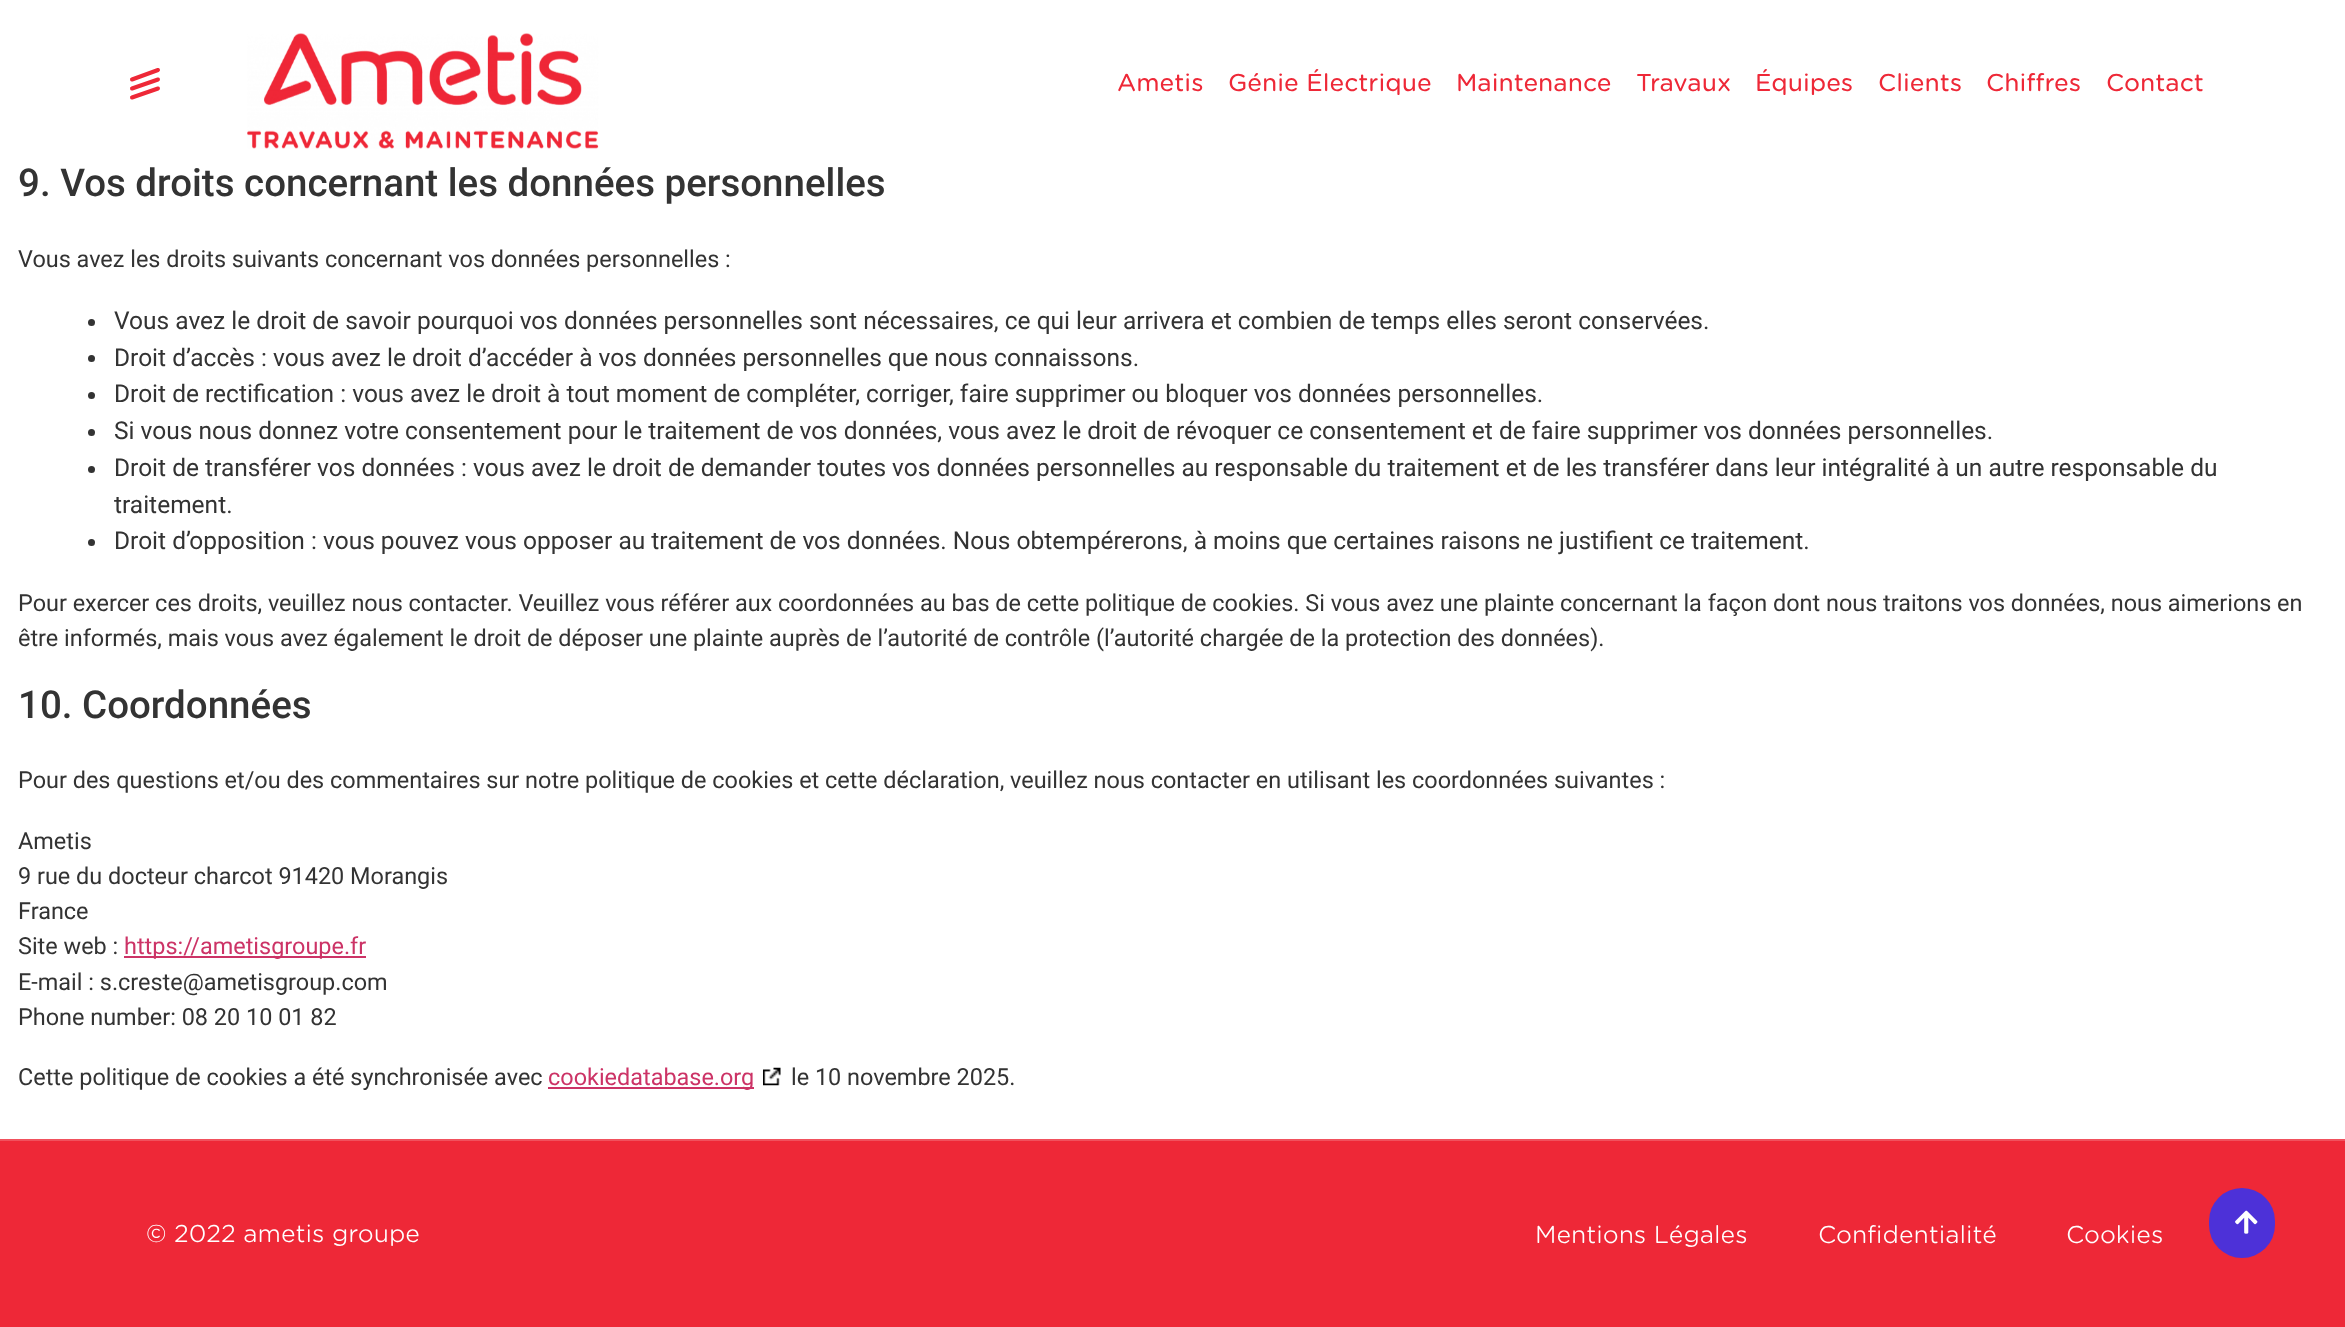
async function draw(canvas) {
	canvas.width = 2345;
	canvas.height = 1327;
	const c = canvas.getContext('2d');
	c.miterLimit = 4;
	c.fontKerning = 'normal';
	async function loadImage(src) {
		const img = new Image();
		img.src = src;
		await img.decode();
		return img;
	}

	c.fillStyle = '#fff';
	c.fillRect(0, 0, 2345, 1327);
	c.beginPath();
	c.moveTo(158, 70);
	c.lineTo(132, 79.5);
	c.moveTo(158, 79.5);
	c.lineTo(132, 88.5);
	c.moveTo(158, 88.5);
	c.lineTo(132, 97.5);
	c.strokeStyle = '#ee2837';
	c.lineWidth = 4;
	c.lineCap = 'round';
	c.stroke();
	c.drawImage(await loadImage('img1.png'), 247, 33, 352, 116);
	c.font = '300 23.45px "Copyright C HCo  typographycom"';
	c.fillStyle = '#ee2837';
	for (const [text, x, y] of [
		['Ametis', 1117, 91],
		['Génie Électrique', 1228, 91],
		['Maintenance', 1456, 91],
		['Travaux', 1636, 91],
		['Équipes', 1755, 91],
		['Clients', 1878, 91],
		['Chiffres', 1986, 91],
		['Contact', 2106, 91],
	]) {
		c.fillText(text, x, y);
	}
	c.font = '500 38.5px Roboto';
	c.fillStyle = '#333';
	c.fillText('9. Vos droits concernant les données personnelles', 18, 196);
	c.font = '23.45px Roboto';
	c.fillText('Vous avez les droits suivants concernant vos données personnelles :', 18, 267);
	c.beginPath();
	c.arc(91.5, 322.5, 3.5, 0, 2 * Math.PI);
	c.fill();
	c.font = '24.5px Roboto';
	c.fillText('Vous avez le droit de savoir pourquoi vos données personnelles sont nécessaires, ce qui leur arrivera et combien de temps elles seront conservées.', 114, 329);
	c.beginPath();
	c.arc(91.5, 358.5, 3.5, 0, 2 * Math.PI);
	c.fill();
	c.fillText('Droit d’accès : vous avez le droit d’accéder à vos données personnelles que nous connaissons.', 114, 366);
	c.beginPath();
	c.arc(91.5, 395.5, 3.5, 0, 2 * Math.PI);
	c.fill();
	c.fillText('Droit de rectification : vous avez le droit à tout moment de compléter, corriger, faire supprimer ou bloquer vos données personnelles.', 114, 402);
	c.beginPath();
	c.arc(91.5, 432.5, 3.5, 0, 2 * Math.PI);
	c.fill();
	c.fillText('Si vous nous donnez votre consentement pour le traitement de vos données, vous avez le droit de révoquer ce consentement et de faire supprimer vos données personnelles.', 114, 439);
	c.beginPath();
	c.arc(91.5, 469.5, 3.5, 0, 2 * Math.PI);
	c.fill();
	c.fillText('Droit de transférer vos données : vous avez le droit de demander toutes vos données personnelles au responsable du traitement et de les transférer dans leur intégralité à un autre responsable du', 114, 476);
	c.fillText('traitement.', 114, 513);
	c.beginPath();
	c.arc(91.5, 542.5, 3.5, 0, 2 * Math.PI);
	c.fill();
	c.fillText('Droit d’opposition : vous pouvez vous opposer au traitement de vos données. Nous obtempérerons, à moins que certaines raisons ne justifient ce traitement.', 114, 549);
	c.font = '23.45px Roboto';
	c.fillText('Pour exercer ces droits, veuillez nous contacter. Veuillez vous référer aux coordonnées au bas de cette politique de cookies. Si vous avez une plainte concernant la façon dont nous traitons vos données, nous aimerions en', 18, 611);
	c.fillText('être informés, mais vous avez également le droit de déposer une plainte auprès de l’autorité de contrôle (l’autorité chargée de la protection des données).', 18, 646);
	c.font = '500 38.5px Roboto';
	c.fillText('10. Coordonnées', 18, 718);
	c.font = '23.45px Roboto';
	for (const [text, x, y] of [
		['Pour des questions et/ou des commentaires sur notre politique de cookies et cette déclaration, veuillez nous contacter en utilisant les coordonnées suivantes :', 18, 788],
		['Ametis', 18, 849],
		['9 rue du docteur charcot 91420 Morangis', 18, 884],
		['France', 18, 919],
		['Site web :', 18, 954],
	]) {
		c.fillText(text, x, y);
	}
	c.fillStyle = '#c36';
	c.fillRect(124, 956, 242, 2);
	c.fillText('https://ametisgroupe.fr', 124, 954);
	c.fillStyle = '#333';
	for (const [text, x, y] of [
		['E-mail : s.creste@ametisgroup.com', 18, 990],
		['Phone number: 08 20 10 01 82', 18, 1025],
		['Cette politique de cookies a été synchronisée avec', 18, 1085],
	]) {
		c.fillText(text, x, y);
	}
	c.fillStyle = '#c36';
	c.fillRect(548, 1087, 206, 2);
	c.fillText('cookiedatabase.org', 548, 1085);
	c.drawImage(await loadImage('img2.png'), 763, 1067, 18, 19);
	c.fillStyle = '#333';
	c.fillText('le 10 novembre 2025.', 791, 1085);
	c.fillStyle = '#ee2837';
	c.fillRect(0, 1141, 2345, 186);
	c.fillStyle = '#f1515d';
	c.fillRect(0, 1139, 2345, 2);
	c.font = '300 23.45px "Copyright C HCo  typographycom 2"';
	c.fillStyle = '#fff';
	for (const [text, x, y] of [
		['© 2022 ametis groupe', 146, 1242],
		['Mentions Légales', 1535, 1243],
		['Confidentialité', 1818, 1243],
		['Cookies', 2066, 1243],
	]) {
		c.fillText(text, x, y);
	}
	c.fillStyle = '#4d31d8';
	c.beginPath();
	c.roundRect(2209, 1188, 66, 70, 33);
	c.fill();
	c.drawImage(await loadImage('img3.png'), 2235, 1210, 23, 24);
}

draw(document.querySelector('canvas'));
